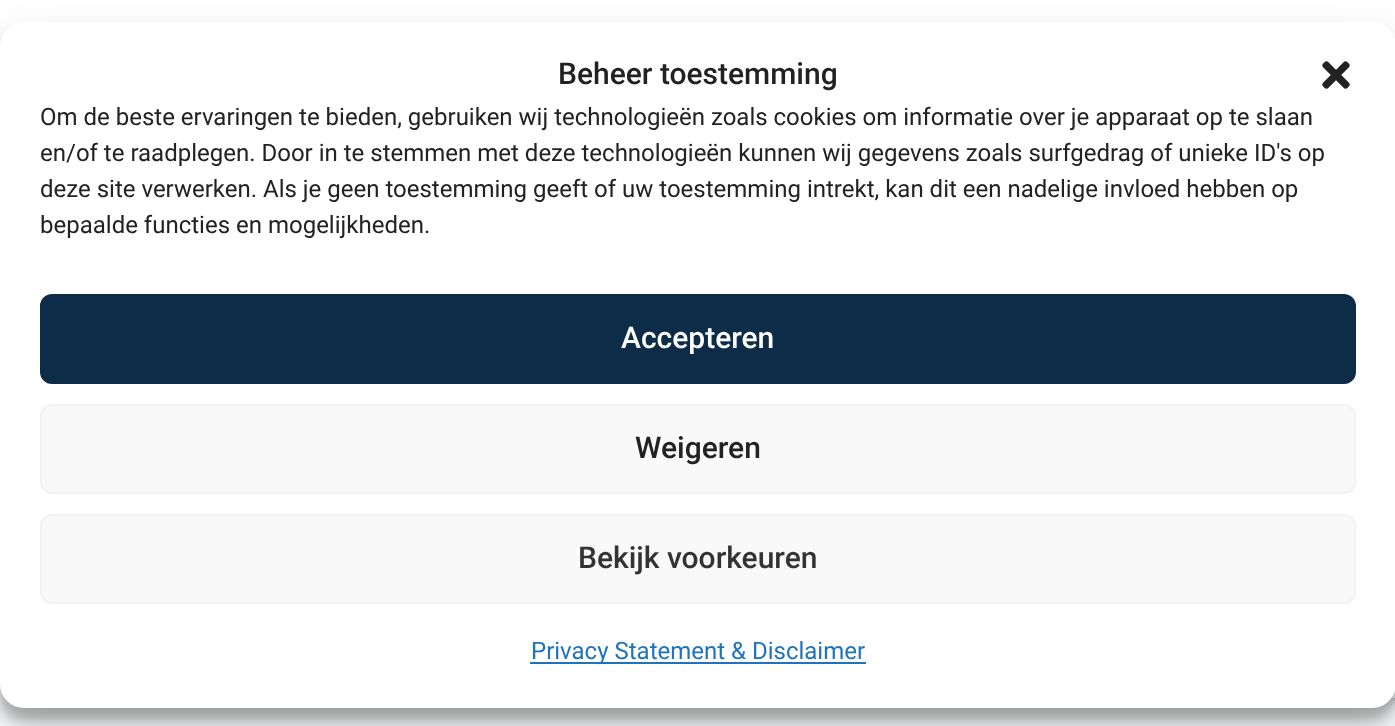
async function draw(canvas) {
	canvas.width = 1395;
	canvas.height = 726;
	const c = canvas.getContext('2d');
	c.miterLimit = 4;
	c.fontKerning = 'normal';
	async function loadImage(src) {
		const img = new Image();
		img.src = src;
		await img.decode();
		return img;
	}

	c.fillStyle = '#fafbfc';
	c.fillRect(0, 0, 1395, 726);
	c.fillStyle = '#fff';
	c.fillRect(0, 0, 1395, 46);
	c.fillStyle = '#0000003b';
	c.filter = 'blur(6px)';
	c.beginPath();
	c.roundRect(0, 34, 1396, 686, 24);
	c.fill();
	c.filter = 'none';
	c.fillStyle = '#00000030';
	c.filter = 'blur(20px)';
	c.beginPath();
	c.roundRect(0, 42, 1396, 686, 24);
	c.fill();
	c.filter = 'none';
	c.save();
	c.beginPath();
	c.rect(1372, 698, 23, 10);
	c.clip();
	c.fillStyle = '#808080';
	c.filter = 'blur(5px)';
	c.beginPath();
	c.roundRect(1256, 578, 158, 120, 4);
	c.fill();
	c.filter = 'none';
	c.restore();
	c.fillStyle = '#fff';
	c.beginPath();
	c.roundRect(0, 22, 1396, 686, 24);
	c.fill();
	c.font = '500 30px Roboto';
	c.fillStyle = '#222';
	c.fillText('Beheer toestemming', 558, 84);
	c.drawImage(await loadImage('img1.png'), 1322, 61, 28, 28);
	c.font = '24px Roboto';
	for (const [text, x, y] of [
		['Om de beste ervaringen te bieden, gebruiken wij technologieën zoals cookies om informatie over je apparaat op te slaan', 40, 125],
		['en/of te raadplegen. Door in te stemmen met deze technologieën kunnen wij gegevens zoals surfgedrag of unieke ID\'s op', 40, 161],
		['deze site verwerken. Als je geen toestemming geeft of uw toestemming intrekt, kan dit een nadelige invloed hebben op', 40, 197],
		['bepaalde functies en mogelijkheden.', 40, 233],
	]) {
		c.fillText(text, x, y);
	}
	c.fillStyle = '#0c2c48';
	c.beginPath();
	c.roundRect(41, 295, 1314, 88, 11);
	c.fill();
	c.strokeStyle = '#0c2c48';
	c.lineWidth = 2;
	c.stroke();
	c.font = '500 30px Roboto';
	c.fillStyle = '#fff';
	c.fillText('Accepteren', 621, 348);
	c.fillStyle = '#f9f9f9';
	c.beginPath();
	c.roundRect(41, 405, 1314, 88, 11);
	c.fill();
	c.strokeStyle = '#f2f2f2';
	c.stroke();
	c.fillStyle = '#222';
	c.fillText('Weigeren', 635, 458);
	c.fillStyle = '#f9f9f9';
	c.beginPath();
	c.roundRect(41, 515, 1314, 88, 11);
	c.fill();
	c.stroke();
	c.fillStyle = '#333';
	c.fillText('Bekijk voorkeuren', 578, 568);
	c.fillStyle = '#1e73be';
	c.fillRect(530, 662, 336, 2);
	c.font = '24px Roboto';
	c.fillText('Privacy Statement & Disclaimer', 531, 659);
}

draw(document.querySelector('canvas'));
